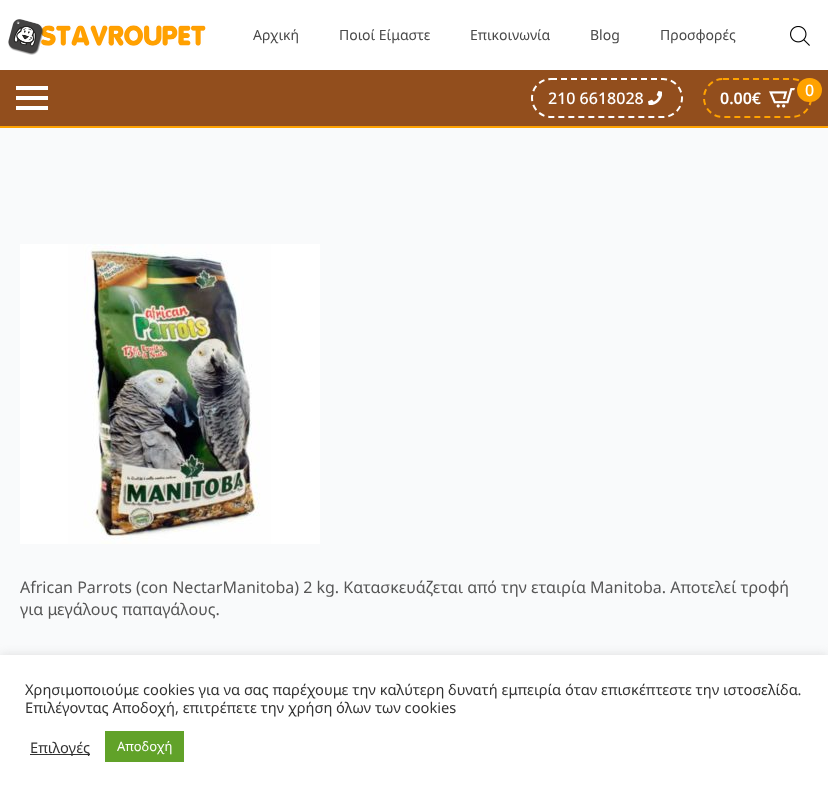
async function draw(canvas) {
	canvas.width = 828;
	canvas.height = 792;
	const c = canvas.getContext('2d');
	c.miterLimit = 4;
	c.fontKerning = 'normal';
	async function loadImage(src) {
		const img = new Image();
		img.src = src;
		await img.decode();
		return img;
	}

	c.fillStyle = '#f9fafb';
	c.fillRect(0, 0, 828, 792);
	c.fillStyle = '#fff';
	c.fillRect(0, 0, 828, 70);
	c.drawImage(await loadImage('img1.png'), 8, 19, 198, 36);
	c.font = '14px Noto Sans';
	c.fillStyle = '#484848';
	for (const [text, x, y] of [
		['Αρχική', 253, 40],
		['Ποιοί Είμαστε', 339, 40],
		['Επικοινωνία', 470, 40],
		['Blog', 590, 40],
		['Προσφορές', 660, 40],
	]) {
		c.fillText(text, x, y);
	}
	c.drawImage(await loadImage('img2.png'), 790, 26, 20, 20);
	for (const [x, y, w, h, color] of [
		[0, 70, 828, 56, '#924e1d'],
		[0, 126, 828, 2, '#ffa200'],
		[16, 96, 32, 4, '#fff'],
		[16, 86, 32, 4, '#fff'],
		[16, 106, 32, 4, '#fff'],
	]) {
		c.fillStyle = color;
		c.fillRect(x, y, w, h);
	}
	c.beginPath();
	c.moveTo(551, 79);
	c.lineTo(663, 79);
	c.bezierCurveTo(673.5, 79, 682, 87.5, 682, 98);
	c.bezierCurveTo(682, 108.5, 673.5, 117, 663, 117);
	c.lineTo(551, 117);
	c.bezierCurveTo(540.5, 117, 532, 108.5, 532, 98);
	c.bezierCurveTo(532, 87.5, 540.5, 79, 551, 79);
	c.closePath();
	c.strokeStyle = '#fff';
	c.lineWidth = 2;
	c.setLineDash([6, 4]);
	c.stroke();
	c.font = '500 16px Noto Sans';
	c.fillText('210 6618028', 548, 104);
	c.drawImage(await loadImage('img3.png'), 648, 91, 14, 14);
	c.beginPath();
	c.moveTo(723, 79);
	c.lineTo(792, 79);
	c.bezierCurveTo(802.5, 79, 811, 87.5, 811, 98);
	c.bezierCurveTo(811, 108.5, 802.5, 117, 792, 117);
	c.lineTo(723, 117);
	c.bezierCurveTo(712.5, 117, 704, 108.5, 704, 98);
	c.bezierCurveTo(704, 87.5, 712.5, 79, 723, 79);
	c.closePath();
	c.strokeStyle = '#ffa200';
	c.stroke();
	c.font = '600 16px Noto Sans';
	c.fillText('0.00€', 720, 104);
	c.drawImage(await loadImage('img4.png'), 769, 88, 26, 20);
	c.fillStyle = '#ffa200';
	c.beginPath();
	c.roundRect(797, 78, 25, 24, 12);
	c.fill();
	c.font = '500 16px Noto Sans';
	c.fillStyle = '#fff';
	c.fillText('0', 805, 96);
	c.drawImage(await loadImage('img5.png'), 20, 244, 300, 300);
	c.font = '16px Noto Sans';
	c.fillStyle = '#565656';
	c.fillText('African Parrots (con NectarManitoba) 2 kg. Κατασκευάζεται από την εταιρία Manitoba. Αποτελεί τροφή', 20, 593);
	c.fillText('για μεγάλους παπαγάλους.', 20, 615);
	c.fillStyle = '#acabab4d';
	c.filter = 'blur(5px)';
	c.beginPath();
	c.rect(0, 654, 828, 137);
	c.fill();
	c.filter = 'none';
	c.fillStyle = '#fff';
	c.fillRect(0, 655, 828, 137);
	c.font = '14.67px Noto Sans';
	c.fillStyle = '#333';
	c.fillText('Χρησιμοποιούμε cookies για να σας παρέχουμε την καλύτερη δυνατή εμπειρία όταν επισκέπτεστε την ιστοσελίδα.', 25, 695);
	c.fillText('Επιλέγοντας Αποδοχή, επιτρέπετε την χρήση όλων των cookies', 25, 713);
	c.fillRect(30, 754, 60, 1);
	c.fillText('Επιλογές', 30, 753);
	c.fillStyle = '#61a229';
	c.fillRect(105, 731, 79, 31);
	c.font = '13px Noto Sans';
	c.fillStyle = '#fff';
	c.fillText('Αποδοχή', 117, 751);
}

draw(document.querySelector('canvas'));
